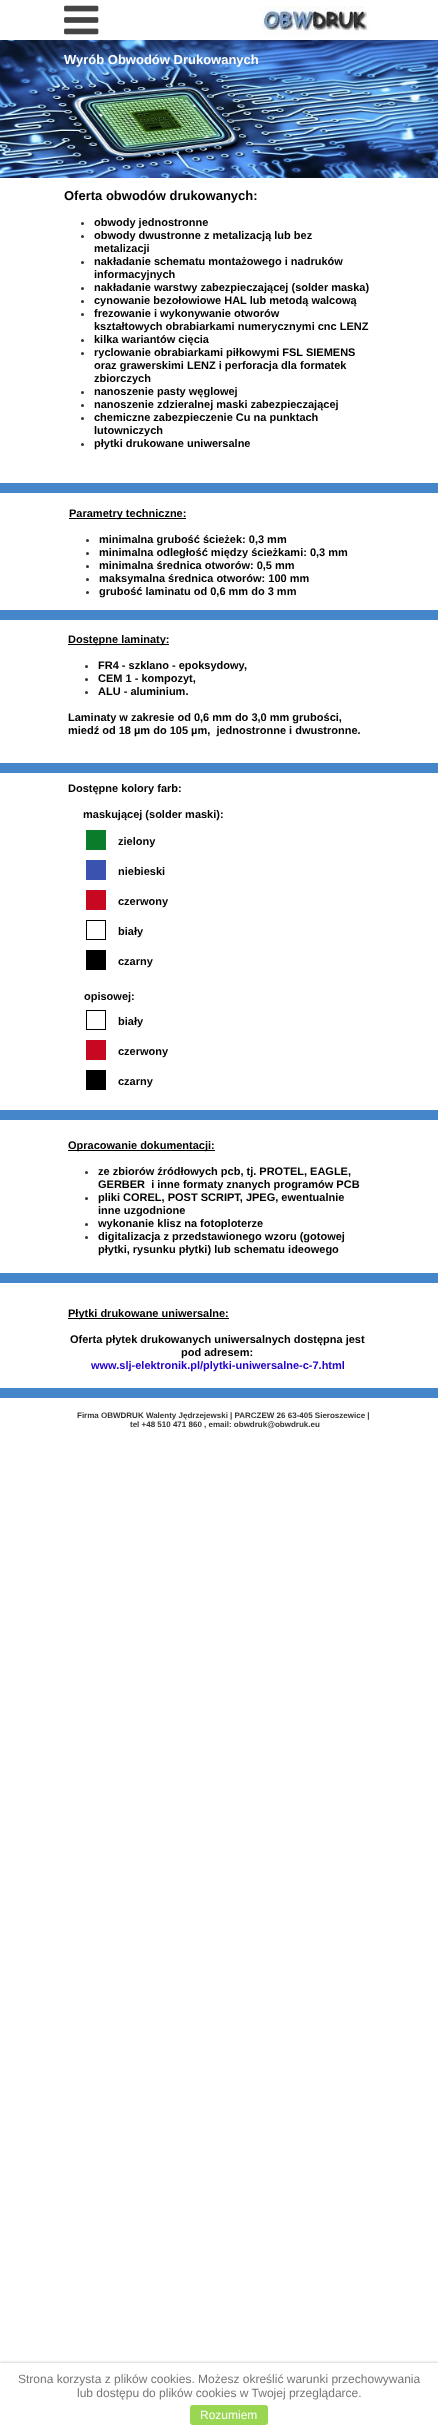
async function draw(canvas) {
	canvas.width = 438;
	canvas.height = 2436;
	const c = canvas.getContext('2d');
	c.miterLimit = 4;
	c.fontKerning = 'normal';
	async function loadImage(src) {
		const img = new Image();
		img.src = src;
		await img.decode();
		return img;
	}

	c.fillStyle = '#fff';
	c.fillRect(0, 0, 438, 2436);
	c.drawImage(await loadImage('img1.png'), 64, 5, 35, 30);
	c.drawImage(await loadImage('img2.png'), 261, 6, 109, 29);
	c.drawImage(await loadImage('img3.png'), 0, 40, 438, 138);
	c.drawImage(await loadImage('img4.png'), 1, 40, 437, 138);
	c.font = 'bold 13px Liberation Sans';
	c.fillStyle = '#fdfefe';
	c.fillText('Wyrób Obwodów Drukowanych', 64, 64);
	c.fillStyle = '#000';
	c.fillText('Oferta obwodów drukowanych:', 64, 200);
	c.fillStyle = '#333';
	c.beginPath();
	c.arc(82.5, 223.5, 1.5, 0, 2 * Math.PI);
	c.fill();
	c.font = 'bold 11px Liberation Sans';
	c.fillStyle = '#000';
	c.fillText('obwody jednostronne', 94, 226);
	c.fillStyle = '#333';
	c.beginPath();
	c.arc(82.5, 236.5, 1.5, 0, 2 * Math.PI);
	c.fill();
	c.fillStyle = '#000';
	c.fillText('obwody dwustronne z metalizacją lub bez', 94, 239);
	c.fillText('metalizacji', 94, 252);
	c.fillStyle = '#333';
	c.beginPath();
	c.arc(82.5, 262.5, 1.5, 0, 2 * Math.PI);
	c.fill();
	c.fillStyle = '#000';
	c.fillText('nakładanie schematu montażowego i nadruków', 94, 265);
	c.fillText('informacyjnych', 94, 278);
	c.fillStyle = '#333';
	c.beginPath();
	c.arc(82.5, 288.5, 1.5, 0, 2 * Math.PI);
	c.fill();
	c.fillStyle = '#000';
	c.fillText('nakładanie warstwy zabezpieczającej (solder maska)', 94, 291);
	c.fillStyle = '#333';
	c.beginPath();
	c.arc(82.5, 301.5, 1.5, 0, 2 * Math.PI);
	c.fill();
	c.fillStyle = '#000';
	c.fillText('cynowanie bezołowiowe HAL lub metodą walcową', 94, 304);
	c.fillStyle = '#333';
	c.beginPath();
	c.arc(82.5, 314.5, 1.5, 0, 2 * Math.PI);
	c.fill();
	c.fillStyle = '#000';
	c.fillText('frezowanie i wykonywanie otworów', 94, 317);
	c.fillText('kształtowych obrabiarkami numerycznymi cnc LENZ', 94, 330);
	c.fillStyle = '#333';
	c.beginPath();
	c.arc(82.5, 340.5, 1.5, 0, 2 * Math.PI);
	c.fill();
	c.fillStyle = '#000';
	c.fillText('kilka wariantów cięcia', 94, 343);
	c.fillStyle = '#333';
	c.beginPath();
	c.arc(82.5, 353.5, 1.5, 0, 2 * Math.PI);
	c.fill();
	c.fillStyle = '#000';
	for (const [text, x, y] of [
		['ryclowanie obrabiarkami piłkowymi FSL SIEMENS', 94, 356],
		['oraz grawerskimi LENZ i perforacja dla formatek', 94, 369],
		['zbiorczych', 94, 382],
	]) {
		c.fillText(text, x, y);
	}
	c.fillStyle = '#333';
	c.beginPath();
	c.arc(82.5, 392.5, 1.5, 0, 2 * Math.PI);
	c.fill();
	c.fillStyle = '#000';
	c.fillText('nanoszenie pasty węglowej', 94, 395);
	c.fillStyle = '#333';
	c.beginPath();
	c.arc(82.5, 405.5, 1.5, 0, 2 * Math.PI);
	c.fill();
	c.fillStyle = '#000';
	c.fillText('nanoszenie zdzieralnej maski zabezpieczającej', 94, 408);
	c.fillStyle = '#333';
	c.beginPath();
	c.arc(82.5, 418.5, 1.5, 0, 2 * Math.PI);
	c.fill();
	c.fillStyle = '#000';
	c.fillText('chemiczne zabezpieczenie Cu na punktach', 94, 421);
	c.fillText('lutowniczych', 94, 434);
	c.fillStyle = '#333';
	c.beginPath();
	c.arc(82.5, 444.5, 1.5, 0, 2 * Math.PI);
	c.fill();
	c.fillStyle = '#000';
	c.fillText('płytki drukowane uniwersalne', 94, 447);
	c.fillStyle = '#4585c9';
	c.fillRect(0, 483, 438, 10);
	c.fillStyle = '#000';
	c.fillRect(69, 518, 117, 1);
	c.fillText('Parametry techniczne:', 69, 517);
	c.fillStyle = '#333';
	c.beginPath();
	c.arc(87.5, 540.5, 1.5, 0, 2 * Math.PI);
	c.fill();
	c.fillStyle = '#000';
	c.fillText('minimalna grubość ścieżek: 0,3 mm', 99, 543);
	c.fillStyle = '#333';
	c.beginPath();
	c.arc(87.5, 553.5, 1.5, 0, 2 * Math.PI);
	c.fill();
	c.fillStyle = '#000';
	c.fillText('minimalna odległość między ścieżkami: 0,3 mm', 99, 556);
	c.fillStyle = '#333';
	c.beginPath();
	c.arc(87.5, 566.5, 1.5, 0, 2 * Math.PI);
	c.fill();
	c.fillStyle = '#000';
	c.fillText('minimalna średnica otworów: 0,5 mm', 99, 569);
	c.fillStyle = '#333';
	c.beginPath();
	c.arc(87.5, 579.5, 1.5, 0, 2 * Math.PI);
	c.fill();
	c.fillStyle = '#000';
	c.fillText('maksymalna średnica otworów: 100 mm', 99, 582);
	c.fillStyle = '#333';
	c.beginPath();
	c.arc(87.5, 592.5, 1.5, 0, 2 * Math.PI);
	c.fill();
	c.fillStyle = '#000';
	c.fillText('grubość laminatu od 0,6 mm do 3 mm', 99, 595);
	c.fillStyle = '#4585c9';
	c.fillRect(0, 610, 438, 10);
	c.fillStyle = '#000';
	c.fillRect(68, 644, 101, 1);
	c.fillText('Dostępne laminaty:', 68, 643);
	c.fillStyle = '#333';
	c.beginPath();
	c.arc(86.5, 666.5, 1.5, 0, 2 * Math.PI);
	c.fill();
	c.fillStyle = '#000';
	c.fillText('FR4 - szklano - epoksydowy,', 98, 669);
	c.fillStyle = '#333';
	c.beginPath();
	c.arc(86.5, 679.5, 1.5, 0, 2 * Math.PI);
	c.fill();
	c.fillStyle = '#000';
	c.fillText('CEM 1 - kompozyt,', 98, 682);
	c.fillStyle = '#333';
	c.beginPath();
	c.arc(86.5, 692.5, 1.5, 0, 2 * Math.PI);
	c.fill();
	c.fillStyle = '#000';
	for (const [text, x, y] of [
		['ALU - aluminium.', 98, 695],
		['Laminaty w zakresie od 0,6 mm do 3,0 mm grubości,', 68, 721],
		['miedź od 18 µm do 105 µm,  jednostronne i dwustronne.', 68, 734],
	]) {
		c.fillText(text, x, y);
	}
	c.fillStyle = '#4585c9';
	c.fillRect(0, 763, 438, 10);
	c.fillStyle = '#000';
	c.fillText('Dostępne kolory farb:', 68, 792);
	c.fillText('maskującej (solder maski):', 83, 818);
	c.fillStyle = '#0a7d2c';
	c.fillRect(86, 830, 20, 20);
	c.fillStyle = '#000';
	c.fillText('zielony', 118, 845);
	c.fillStyle = '#3a52b0';
	c.fillRect(86, 860, 20, 20);
	c.fillStyle = '#000';
	c.fillText('niebieski', 118, 875);
	c.fillStyle = '#c70821';
	c.fillRect(86, 890, 20, 20);
	c.fillStyle = '#000';
	c.fillText('czerwony', 118, 905);
	c.strokeStyle = '#000';
	c.strokeRect(86.5, 920.5, 19, 19);
	c.fillText('biały', 118, 935);
	c.fillRect(86, 950, 20, 20);
	c.fillText('czarny', 118, 965);
	c.fillText('opisowej:', 84, 1000);
	c.strokeRect(86.5, 1010.5, 19, 19);
	c.fillText('biały', 118, 1025);
	c.fillStyle = '#c70821';
	c.fillRect(86, 1040, 20, 20);
	c.fillStyle = '#000';
	c.fillText('czerwony', 118, 1055);
	c.fillRect(86, 1070, 20, 20);
	c.fillText('czarny', 118, 1085);
	c.fillStyle = '#4585c9';
	c.fillRect(0, 1110, 438, 10);
	c.fillStyle = '#000';
	c.fillRect(68, 1150, 147, 1);
	c.fillText('Opracowanie dokumentacji:', 68, 1149);
	c.fillStyle = '#333';
	c.beginPath();
	c.arc(86.5, 1172.5, 1.5, 0, 2 * Math.PI);
	c.fill();
	c.fillStyle = '#000';
	c.fillText('ze zbiorów źródłowych pcb, tj. PROTEL, EAGLE,', 98, 1175);
	c.fillText('GERBER  i inne formaty znanych programów PCB', 98, 1188);
	c.fillStyle = '#333';
	c.beginPath();
	c.arc(86.5, 1198.5, 1.5, 0, 2 * Math.PI);
	c.fill();
	c.fillStyle = '#000';
	c.fillText('pliki COREL, POST SCRIPT, JPEG, ewentualnie', 98, 1201);
	c.fillText('inne uzgodnione', 98, 1214);
	c.fillStyle = '#333';
	c.beginPath();
	c.arc(86.5, 1224.5, 1.5, 0, 2 * Math.PI);
	c.fill();
	c.fillStyle = '#000';
	c.fillText('wykonanie klisz na fotoploterze', 98, 1227);
	c.fillStyle = '#333';
	c.beginPath();
	c.arc(86.5, 1237.5, 1.5, 0, 2 * Math.PI);
	c.fill();
	c.fillStyle = '#000';
	c.fillText('digitalizacja z przedstawionego wzoru (gotowej', 98, 1240);
	c.fillText('płytki, rysunku płytki) lub schematu ideowego', 98, 1253);
	c.fillStyle = '#4585c9';
	c.fillRect(0, 1273, 438, 10);
	c.fillStyle = '#000';
	c.fillRect(68, 1318, 161, 1);
	for (const [text, x, y] of [
		['Płytki drukowane uniwersalne:', 68, 1317],
		['Oferta płytek drukowanych uniwersalnych dostępna jest', 70, 1343],
		['pod adresem:', 181, 1356],
	]) {
		c.fillText(text, x, y);
	}
	c.fillStyle = '#20c';
	c.fillText('www.slj-elektronik.pl/plytki-uniwersalne-c-7.html', 91, 1369);
	c.fillStyle = '#4585c9';
	c.fillRect(0, 1388, 438, 10);
	c.font = 'bold 8px Liberation Sans';
	c.fillStyle = '#333';
	c.fillText('Firma OBWDRUK Walenty Jędrzejewski | PARCZEW 26 63-405 Sieroszewice |', 77, 1418);
	c.fillText('tel +48 510 471 860 , email: obwdruk@obwdruk.eu', 130, 1427);
	c.save();
	c.beginPath();
	c.rect(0, 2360, 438, 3);
	c.clip();
	c.fillStyle = '#d6d6d6';
	c.filter = 'blur(1px)';
	c.beginPath();
	c.rect(0, 2362, 438, 73);
	c.fill();
	c.filter = 'none';
	c.restore();
	c.font = '12px Liberation Sans';
	c.fillStyle = '#767676';
	c.fillText('Strona korzysta z plików cookies. Możesz określić warunki przechowywania', 18, 2383);
	c.fillText('lub dostępu do plików cookies w Twojej przeglądarce.', 77, 2397);
	c.fillStyle = '#99d652';
	c.beginPath();
	c.roundRect(190, 2405, 78, 20, 3);
	c.fill();
	c.fillStyle = '#fdfefe';
	c.fillText('Rozumiem', 200, 2419);
}

draw(document.querySelector('canvas'));
